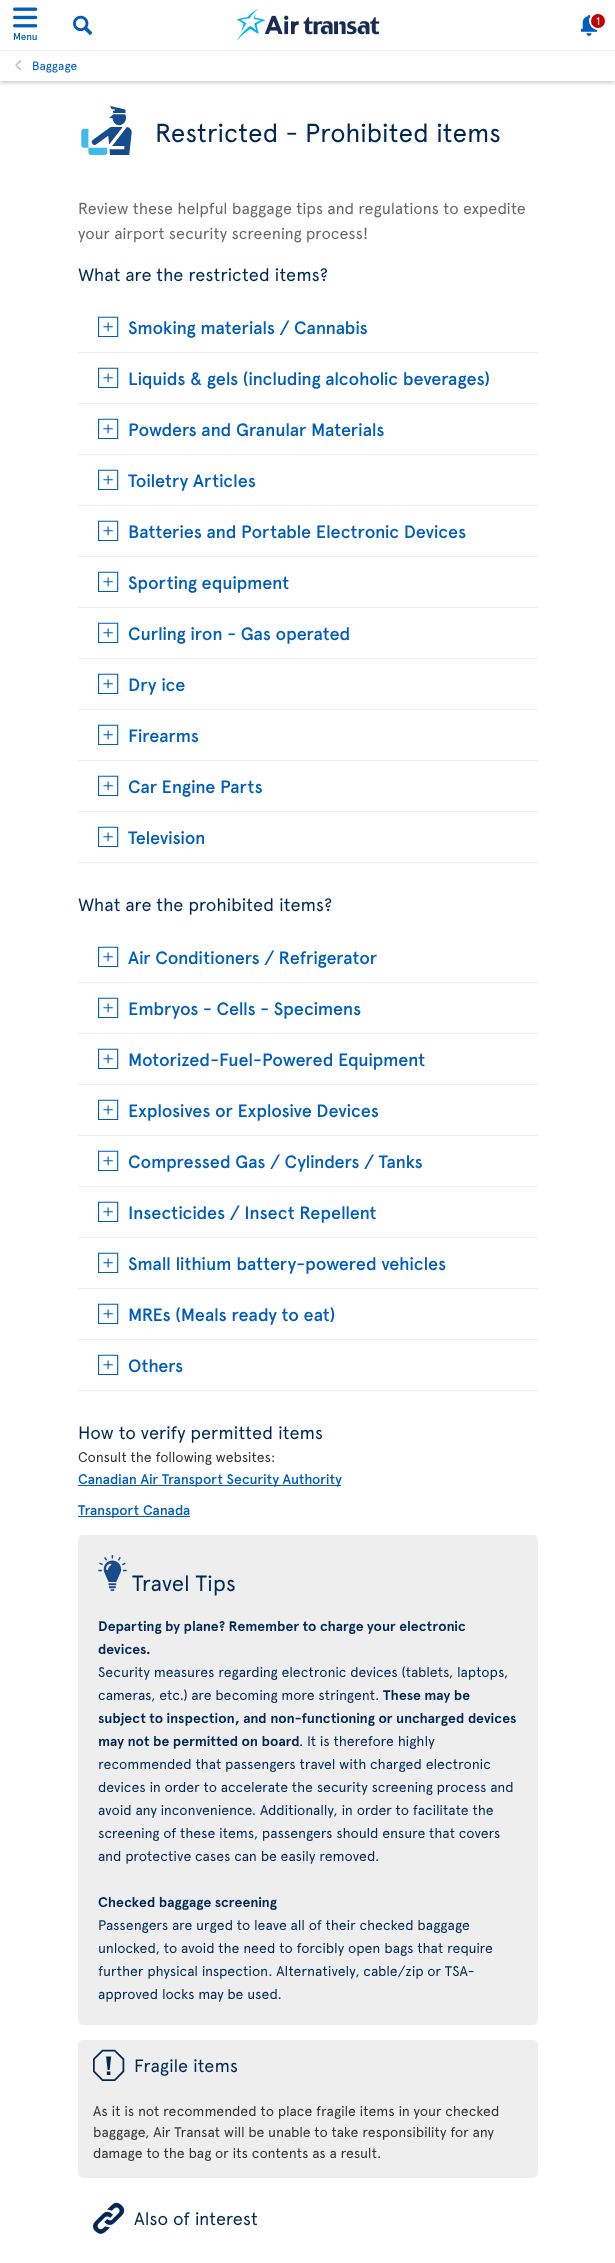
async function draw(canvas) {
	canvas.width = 615;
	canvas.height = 2263;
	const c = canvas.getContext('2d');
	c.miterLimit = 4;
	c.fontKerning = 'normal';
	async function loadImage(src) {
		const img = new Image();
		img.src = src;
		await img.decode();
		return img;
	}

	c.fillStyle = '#fff';
	c.fillRect(0, 0, 615, 2263);
	c.save();
	c.beginPath();
	c.rect(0, 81, 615, 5);
	c.clip();
	c.fillStyle = '#00000033';
	c.filter = 'blur(2px)';
	c.beginPath();
	c.rect(0, 2, 615, 81);
	c.fill();
	c.filter = 'none';
	c.restore();
	c.drawImage(await loadImage('img1.png'), 236, 9, 144, 32);
	c.drawImage(await loadImage('img2.png'), 581, 15, 17, 21);
	c.fillStyle = '#c50000';
	c.beginPath();
	c.arc(598, 21, 8, 0, 2 * Math.PI);
	c.fill();
	c.strokeStyle = '#fff';
	c.lineWidth = 2;
	c.stroke();
	c.font = '11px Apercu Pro';
	c.fillStyle = '#fff';
	c.fillText('1', 596, 25);
	c.drawImage(await loadImage('img3.png'), 73, 15, 20, 20);
	c.drawImage(await loadImage('img4.png'), 13, 7, 25, 21);
	c.font = '500 10px Apercu Pro';
	c.fillStyle = '#005eba';
	c.fillText('Menu', 13, 40);
	c.fillStyle = '#eee';
	c.fillRect(0, 50, 615, 1);
	c.font = '16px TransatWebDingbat';
	c.fillStyle = '#c2c2c2';
	c.fillText('<', 15, 70);
	c.font = '12px Apercu Pro';
	c.fillStyle = '#005eba';
	c.fillText('Baggage', 32, 70);
	c.drawImage(await loadImage('img5.png'), 81, 106, 51, 49);
	c.font = '26px Apercu Pro';
	c.fillStyle = '#002855';
	c.fillText('Restricted - Prohibited items', 155, 142);
	c.font = '16px Apercu Pro';
	c.fillStyle = '#696969';
	c.fillText('Review these helpful baggage tips and regulations to expedite', 78, 214);
	c.fillText('your airport security screening process!', 78, 239);
	c.font = '18px Apercu Pro';
	c.fillStyle = '#002855';
	c.fillText('What are the restricted items?', 78, 281);
	c.fillStyle = '#eee';
	c.fillRect(78, 352, 460, 1);
	c.font = '32px TransatWebDingbat';
	c.fillStyle = '#005eba';
	c.fillText('+', 98, 337);
	c.font = '500 18px Apercu Pro';
	c.fillText('Smoking materials / Cannabis', 128, 334);
	c.fillStyle = '#eee';
	c.fillRect(78, 403, 460, 1);
	c.font = '32px TransatWebDingbat';
	c.fillStyle = '#005eba';
	c.fillText('+', 98, 388);
	c.font = '500 18px Apercu Pro';
	c.fillText('Liquids & gels (including alcoholic beverages)', 128, 385);
	c.fillStyle = '#eee';
	c.fillRect(78, 454, 460, 1);
	c.font = '32px TransatWebDingbat';
	c.fillStyle = '#005eba';
	c.fillText('+', 98, 439);
	c.font = '500 18px Apercu Pro';
	c.fillText('Powders and Granular Materials', 128, 436);
	c.fillStyle = '#eee';
	c.fillRect(78, 505, 460, 1);
	c.font = '32px TransatWebDingbat';
	c.fillStyle = '#005eba';
	c.fillText('+', 98, 490);
	c.font = '500 18px Apercu Pro';
	c.fillText('Toiletry Articles', 128, 487);
	c.fillStyle = '#eee';
	c.fillRect(78, 556, 460, 1);
	c.font = '32px TransatWebDingbat';
	c.fillStyle = '#005eba';
	c.fillText('+', 98, 541);
	c.font = '500 18px Apercu Pro';
	c.fillText('Batteries and Portable Electronic Devices', 128, 538);
	c.fillStyle = '#eee';
	c.fillRect(78, 607, 460, 1);
	c.font = '32px TransatWebDingbat';
	c.fillStyle = '#005eba';
	c.fillText('+', 98, 592);
	c.font = '500 18px Apercu Pro';
	c.fillText('Sporting equipment', 128, 589);
	c.fillStyle = '#eee';
	c.fillRect(78, 658, 460, 1);
	c.font = '32px TransatWebDingbat';
	c.fillStyle = '#005eba';
	c.fillText('+', 98, 643);
	c.font = '500 18px Apercu Pro';
	c.fillText('Curling iron - Gas operated', 128, 640);
	c.fillStyle = '#eee';
	c.fillRect(78, 709, 460, 1);
	c.font = '32px TransatWebDingbat';
	c.fillStyle = '#005eba';
	c.fillText('+', 98, 694);
	c.font = '500 18px Apercu Pro';
	c.fillText('Dry ice', 128, 691);
	c.fillStyle = '#eee';
	c.fillRect(78, 760, 460, 1);
	c.font = '32px TransatWebDingbat';
	c.fillStyle = '#005eba';
	c.fillText('+', 98, 745);
	c.font = '500 18px Apercu Pro';
	c.fillText('Firearms', 128, 742);
	c.fillStyle = '#eee';
	c.fillRect(78, 811, 460, 1);
	c.font = '32px TransatWebDingbat';
	c.fillStyle = '#005eba';
	c.fillText('+', 98, 796);
	c.font = '500 18px Apercu Pro';
	c.fillText('Car Engine Parts', 128, 793);
	c.fillStyle = '#eee';
	c.fillRect(78, 862, 460, 1);
	c.font = '32px TransatWebDingbat';
	c.fillStyle = '#005eba';
	c.fillText('+', 98, 847);
	c.font = '500 18px Apercu Pro';
	c.fillText('Television', 128, 844);
	c.font = '18px Apercu Pro';
	c.fillStyle = '#002855';
	c.fillText('What are the prohibited items?', 78, 911);
	c.fillStyle = '#eee';
	c.fillRect(78, 982, 460, 1);
	c.font = '32px TransatWebDingbat';
	c.fillStyle = '#005eba';
	c.fillText('+', 98, 967);
	c.font = '500 18px Apercu Pro';
	c.fillText('Air Conditioners / Refrigerator', 128, 964);
	c.fillStyle = '#eee';
	c.fillRect(78, 1033, 460, 1);
	c.font = '32px TransatWebDingbat';
	c.fillStyle = '#005eba';
	c.fillText('+', 98, 1018);
	c.font = '500 18px Apercu Pro';
	c.fillText('Embryos - Cells - Specimens', 128, 1015);
	c.fillStyle = '#eee';
	c.fillRect(78, 1084, 460, 1);
	c.font = '32px TransatWebDingbat';
	c.fillStyle = '#005eba';
	c.fillText('+', 98, 1069);
	c.font = '500 18px Apercu Pro';
	c.fillText('Motorized-Fuel-Powered Equipment', 128, 1066);
	c.fillStyle = '#eee';
	c.fillRect(78, 1135, 460, 1);
	c.font = '32px TransatWebDingbat';
	c.fillStyle = '#005eba';
	c.fillText('+', 98, 1120);
	c.font = '500 18px Apercu Pro';
	c.fillText('Explosives or Explosive Devices', 128, 1117);
	c.fillStyle = '#eee';
	c.fillRect(78, 1186, 460, 1);
	c.font = '32px TransatWebDingbat';
	c.fillStyle = '#005eba';
	c.fillText('+', 98, 1171);
	c.font = '500 18px Apercu Pro';
	c.fillText('Compressed Gas / Cylinders / Tanks', 128, 1168);
	c.fillStyle = '#eee';
	c.fillRect(78, 1237, 460, 1);
	c.font = '32px TransatWebDingbat';
	c.fillStyle = '#005eba';
	c.fillText('+', 98, 1222);
	c.font = '500 18px Apercu Pro';
	c.fillText('Insecticides / Insect Repellent', 128, 1219);
	c.fillStyle = '#eee';
	c.fillRect(78, 1288, 460, 1);
	c.font = '32px TransatWebDingbat';
	c.fillStyle = '#005eba';
	c.fillText('+', 98, 1273);
	c.font = '500 18px Apercu Pro';
	c.fillText('Small lithium battery-powered vehicles', 128, 1270);
	c.fillStyle = '#eee';
	c.fillRect(78, 1339, 460, 1);
	c.font = '32px TransatWebDingbat';
	c.fillStyle = '#005eba';
	c.fillText('+', 98, 1324);
	c.font = '500 18px Apercu Pro';
	c.fillText('MREs (Meals ready to eat)', 128, 1321);
	c.fillStyle = '#eee';
	c.fillRect(78, 1390, 460, 1);
	c.font = '32px TransatWebDingbat';
	c.fillStyle = '#005eba';
	c.fillText('+', 98, 1375);
	c.font = '500 18px Apercu Pro';
	c.fillText('Others', 128, 1372);
	c.font = '18px Apercu Pro';
	c.fillStyle = '#002855';
	c.fillText('How to verify permitted items', 78, 1439);
	c.font = '14px Apercu Pro';
	c.fillStyle = '#333';
	c.fillText('Consult the following websites:', 78, 1462);
	c.fillStyle = '#005eba';
	c.fillRect(78, 1485, 263, 1);
	c.font = '500 14px Apercu Pro';
	c.fillText('Canadian Air Transport Security Authority', 78, 1484);
	c.fillRect(78, 1516, 112, 1);
	c.fillText('Transport Canada', 78, 1515);
	c.fillStyle = '#eee';
	c.beginPath();
	c.roundRect(78, 1535, 460, 490, 5);
	c.fill();
	c.drawImage(await loadImage('img6.png'), 98, 1555, 29, 36);
	c.font = '22px Apercu Pro';
	c.fillStyle = '#002855';
	c.fillText('Travel Tips', 132, 1591);
	c.font = 'bold 14px Apercu Pro';
	c.fillText('Departing by plane? Remember to charge your electronic', 98, 1631);
	c.fillText('devices.', 98, 1654);
	c.font = '14px Apercu Pro';
	c.fillText('Security measures regarding electronic devices (tablets, laptops,', 98, 1677);
	c.fillText('cameras, etc.) are becoming more stringent.', 98, 1700);
	c.font = 'bold 14px Apercu Pro';
	for (const [text, x, y] of [
		['These may be', 383, 1700],
		['subject to inspection, and non-functioning or uncharged devices', 98, 1723],
		['may not be permitted on board', 98, 1746],
	]) {
		c.fillText(text, x, y);
	}
	c.font = '14px Apercu Pro';
	for (const [text, x, y] of [
		['. It is therefore highly', 299, 1746],
		['recommended that passengers travel with charged electronic', 98, 1769],
		['devices in order to accelerate the security screening process and', 98, 1792],
		['avoid any inconvenience. Additionally, in order to facilitate the', 98, 1815],
		['screening of these items, passengers should ensure that covers', 98, 1838],
		['and protective cases can be easily removed.', 98, 1861],
	]) {
		c.fillText(text, x, y);
	}
	c.font = 'bold 14px Apercu Pro';
	c.fillText('Checked baggage screening', 98, 1907);
	c.font = '14px Apercu Pro';
	for (const [text, x, y] of [
		['Passengers are urged to leave all of their checked baggage', 98, 1930],
		['unlocked, to avoid the need to forcibly open bags that require', 98, 1953],
		['further physical inspection. Alternatively, cable/zip or TSA-', 98, 1976],
		['approved locks may be used.', 98, 1999],
	]) {
		c.fillText(text, x, y);
	}
	c.fillStyle = '#eee';
	c.beginPath();
	c.roundRect(78, 2040, 460, 138, 5);
	c.fill();
	c.font = '40px TransatWebDingbat';
	c.fillStyle = '#002855';
	c.fillText('ü', 93, 2077);
	c.font = '18px Apercu Pro';
	c.fillText('Fragile items', 134, 2072);
	c.font = '14px Apercu Pro';
	c.fillStyle = '#333';
	for (const [text, x, y] of [
		['As it is not recommended to place fragile items in your checked', 93, 2116],
		['baggage, Air Transat will be unable to take responsibility for any', 93, 2137],
		['damage to the bag or its contents as a result.', 93, 2158],
	]) {
		c.fillText(text, x, y);
	}
	c.font = '40px TransatWebDingbat';
	c.fillStyle = '#002855';
	c.fillText('ÿ', 93, 2230);
	c.font = '18px Apercu Pro';
	c.fillText('Also of interest', 134, 2225);
}

draw(document.querySelector('canvas'));
